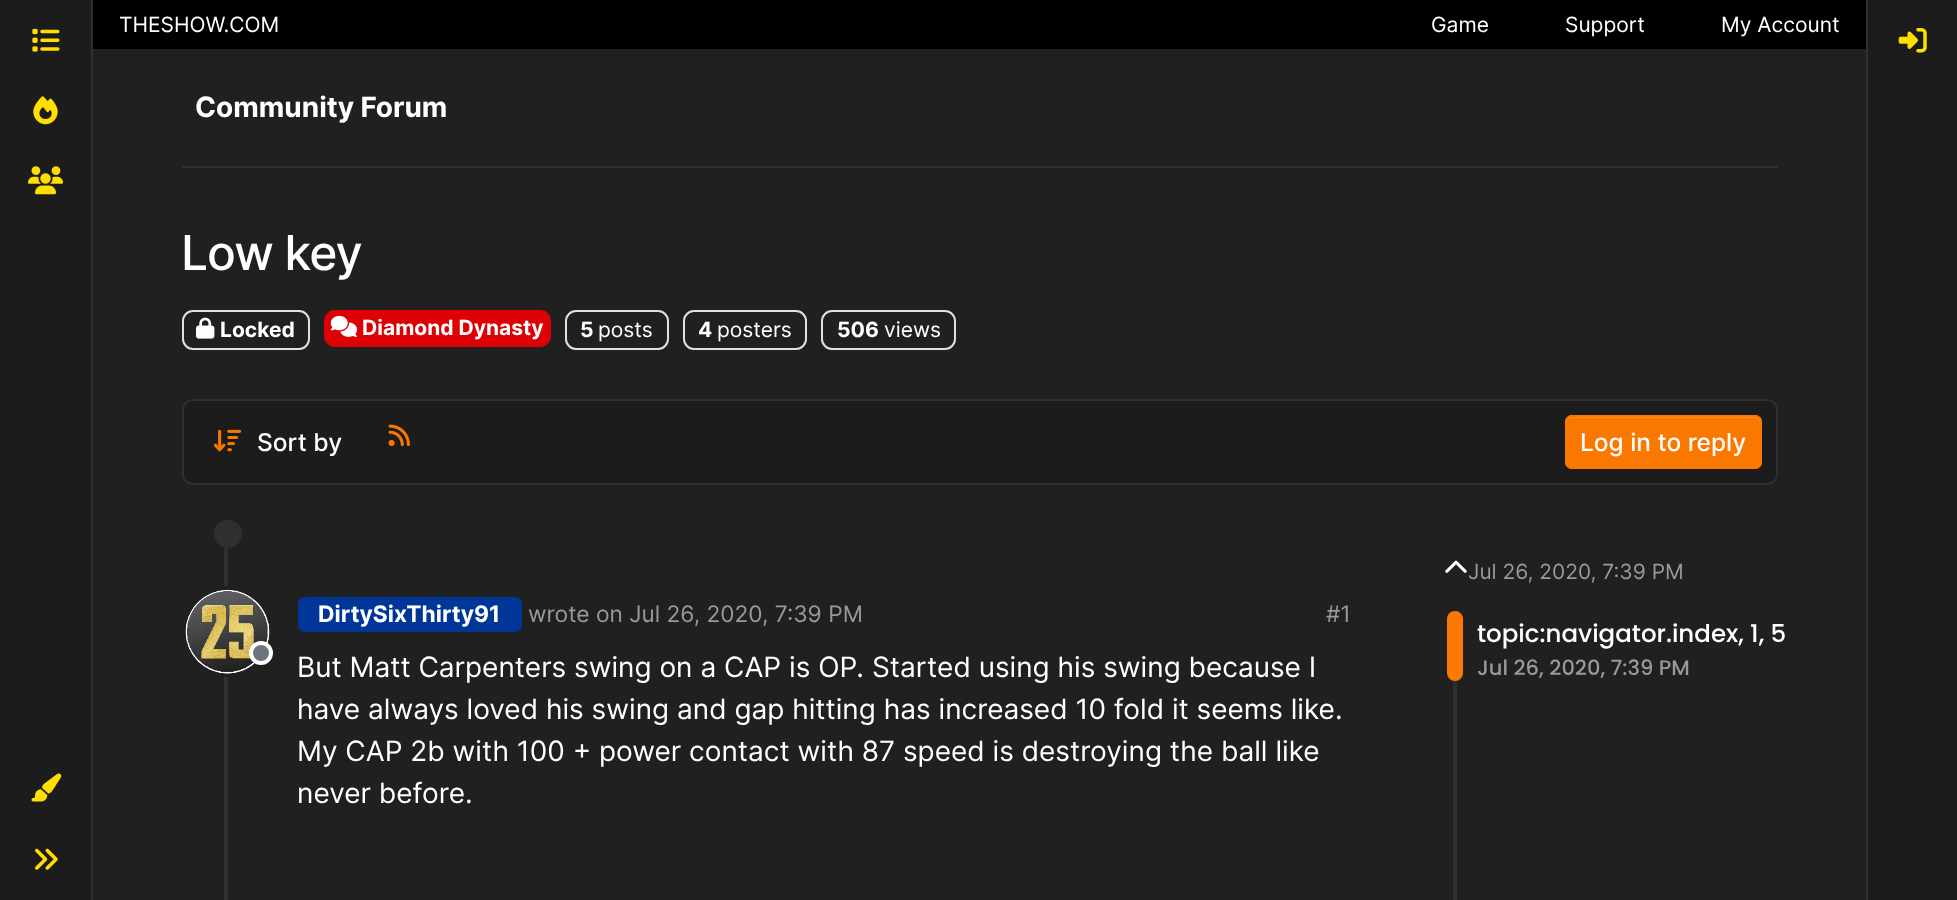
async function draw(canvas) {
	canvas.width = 1957;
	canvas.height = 900;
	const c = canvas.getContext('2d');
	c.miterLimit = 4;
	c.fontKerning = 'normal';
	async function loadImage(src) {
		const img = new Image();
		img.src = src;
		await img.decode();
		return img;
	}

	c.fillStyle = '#202020';
	c.fillRect(0, 0, 1957, 900);
	c.fillStyle = '#1d1c1c';
	c.fillRect(0, 0, 91, 900);
	c.fillStyle = '#2f2f2f';
	c.fillRect(91, 0, 2, 900);
	c.drawImage(await loadImage('img1.png'), 32, 28, 28, 24);
	c.drawImage(await loadImage('img2.png'), 33, 96, 25, 29);
	c.drawImage(await loadImage('img3.png'), 28, 166, 35, 29);
	c.drawImage(await loadImage('img4.png'), 31, 773, 31, 29);
	c.drawImage(await loadImage('img5.png'), 35, 848, 23, 22);
	c.fillStyle = '#000';
	c.fillRect(93, 0, 1773, 49);
	c.font = '21px Inter';
	c.fillStyle = '#fff';
	for (const [text, x, y] of [
		['THESHOW.COM', 119, 32],
		['Game', 1431, 32],
		['Support', 1565, 32],
		['My Account', 1721, 32],
	]) {
		c.fillText(text, x, y);
	}
	c.fillStyle = '#2f2f2f';
	c.fillRect(182, 166, 1596, 2);
	c.font = 'bold 28px Inter';
	c.fillStyle = '#fff';
	c.fillText('Community Forum', 195, 117);
	c.letterSpacing = '-1px';
	c.font = '500 48px Inter';
	c.fillText('Low key', 181, 270);
	c.beginPath();
	c.roundRect(183, 311, 126, 38, 10);
	c.strokeStyle = '#dee2e6';
	c.lineWidth = 2;
	c.stroke();
	c.drawImage(await loadImage('img6.png'), 196, 317, 19, 22);
	c.letterSpacing = '0px';
	c.font = 'bold 21px Inter';
	c.fillText('Locked', 220, 337);
	c.fillStyle = '#dd0005';
	c.beginPath();
	c.roundRect(324, 310, 227, 37, 11);
	c.fill();
	c.drawImage(await loadImage('img7.png'), 330, 315, 27, 22);
	c.fillStyle = '#fff';
	c.fillText('Diamond Dynasty', 362, 335);
	c.beginPath();
	c.roundRect(566, 311, 102, 38, 10);
	c.stroke();
	c.fillText('5', 580, 337);
	c.font = '21px Inter';
	c.fillText('posts', 598, 337);
	c.beginPath();
	c.roundRect(684, 311, 122, 38, 10);
	c.stroke();
	c.font = 'bold 21px Inter';
	c.fillText('4', 698, 337);
	c.font = '21px Inter';
	c.fillText('posters', 717, 337);
	c.beginPath();
	c.roundRect(822, 311, 133, 38, 10);
	c.stroke();
	c.font = 'bold 21px Inter';
	c.fillText('506', 837, 337);
	c.font = '21px Inter';
	c.fillText('views', 884, 337);
	c.fillStyle = '#1d1c1c';
	c.beginPath();
	c.roundRect(183, 400, 1594, 84, 10);
	c.fill();
	c.strokeStyle = '#2f2f2f';
	c.stroke();
	c.drawImage(await loadImage('img8.png'), 213, 429, 28, 23);
	c.font = '500 24.5px Inter';
	c.fillStyle = '#fff';
	c.fillText('Sort by', 257, 451);
	c.drawImage(await loadImage('img9.png'), 388, 424, 22, 22);
	c.fillStyle = '#fb7800';
	c.beginPath();
	c.roundRect(1565, 415, 197, 54, 7);
	c.fill();
	c.fillStyle = '#fc8c26';
	c.beginPath();
	c.moveTo(1572, 418);
	c.lineTo(1755, 418);
	c.bezierCurveTo(1758, 418, 1760, 421, 1760, 424);
	c.lineTo(1760, 465);
	c.bezierCurveTo(1761, 464, 1761, 463, 1761, 462);
	c.lineTo(1761, 422);
	c.bezierCurveTo(1761, 419, 1759, 417, 1756, 417);
	c.lineTo(1571, 417);
	c.bezierCurveTo(1568, 417, 1566, 419, 1566, 422);
	c.lineTo(1566, 424);
	c.bezierCurveTo(1566, 421, 1569, 418, 1572, 418);
	c.closePath();
	c.fill();
	c.beginPath();
	c.roundRect(1566, 416, 195, 52, 6);
	c.strokeStyle = '#fb7800';
	c.stroke();
	c.fillStyle = '#fff';
	c.fillText('Log in to reply', 1580, 451);
	c.fillStyle = '#2f2f2f';
	c.fillRect(224, 548, 4, 352);
	c.beginPath();
	c.arc(228, 534, 14, 0, 2 * Math.PI);
	c.fill();
	c.beginPath();
	c.arc(227.5, 631.5, 43.5, 0, 2 * Math.PI);
	c.strokeStyle = '#202020';
	c.lineWidth = 4;
	c.stroke();
	c.drawImage(await loadImage('img10.png'), 185, 589, 85, 85);
	c.fillStyle = '#6c757d';
	c.beginPath();
	c.arc(261, 653, 10, 0, 2 * Math.PI);
	c.fill();
	c.strokeStyle = '#fff';
	c.stroke();
	c.fillStyle = '#003697';
	c.beginPath();
	c.roundRect(298, 597, 224, 35, 7);
	c.fill();
	c.font = 'bold 22.75px Inter';
	c.fillStyle = '#fff';
	c.fillText('DirtySixThirty91', 318, 622);
	c.font = '22.75px Inter';
	c.fillStyle = '#999';
	c.fillText('wrote on Jul 26, 2020, 7:39 PM', 528, 622);
	c.fillText('#1', 1326, 622);
	c.font = '28px Inter';
	c.fillStyle = '#fff';
	for (const [text, x, y] of [
		['But Matt Carpenters swing on a CAP is OP. Started using his swing because I', 297, 677],
		['have always loved his swing and gap hitting has increased 10 fold it seems like.', 297, 719],
		['My CAP 2b with 100 + power contact with 87 speed is destroying the ball like', 297, 761],
		['never before.', 297, 803],
	]) {
		c.fillText(text, x, y);
	}
	c.drawImage(await loadImage('img11.png'), 1445, 560, 22, 13);
	c.font = '21px Inter';
	c.fillStyle = '#999';
	c.fillText('Jul 26, 2020, 7:39 PM', 1468, 579);
	c.fillStyle = '#2f2f2f';
	c.fillRect(1453, 611, 4, 289);
	c.fillStyle = '#fb7900';
	c.beginPath();
	c.roundRect(1447, 611, 16, 70, 8);
	c.fill();
	c.font = '500 24.5px Poppins';
	c.fillStyle = '#fff';
	c.fillText('topic:navigator.index, 1, 5', 1477, 642);
	c.font = '500 21px Poppins';
	c.fillStyle = '#999';
	c.fillText('Jul 26, 2020, 7:39 PM', 1477, 675);
	c.fillStyle = '#1d1c1c';
	c.fillRect(1868, 0, 89, 900);
	c.fillStyle = '#2f2f2f';
	c.fillRect(1866, 0, 2, 900);
	c.drawImage(await loadImage('img12.png'), 1898, 28, 29, 25);
}

draw(document.querySelector('canvas'));
